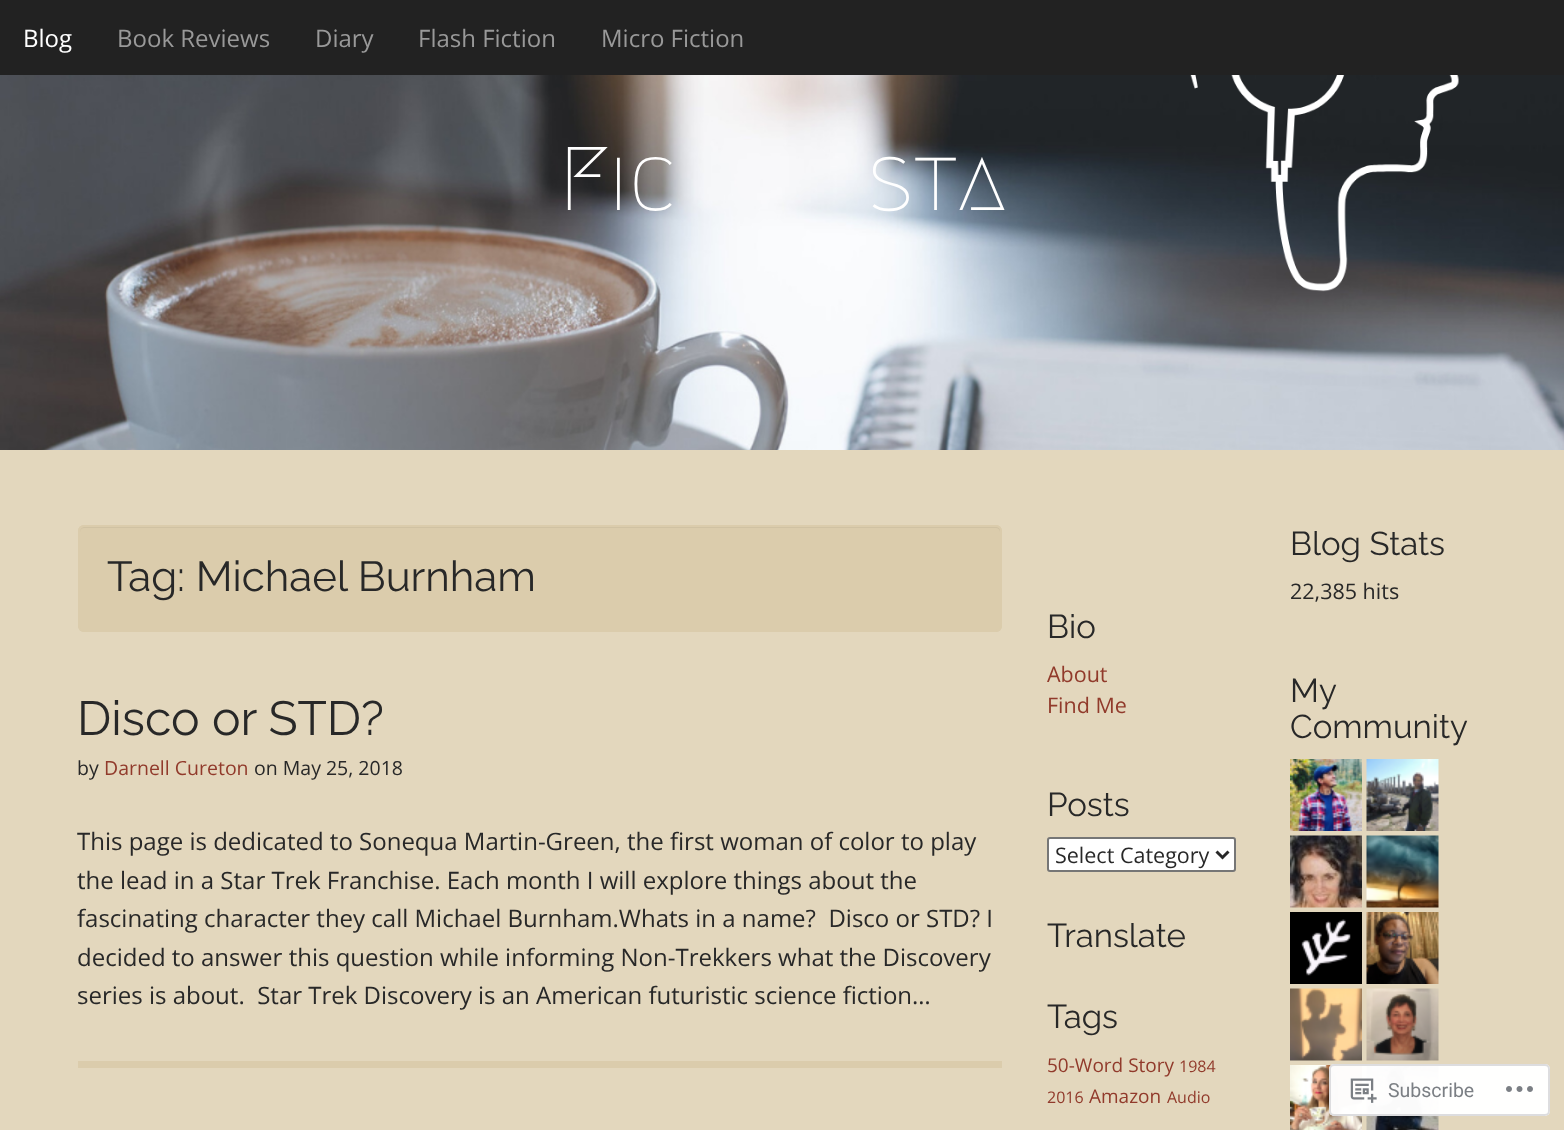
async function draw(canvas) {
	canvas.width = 1564;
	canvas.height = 1130;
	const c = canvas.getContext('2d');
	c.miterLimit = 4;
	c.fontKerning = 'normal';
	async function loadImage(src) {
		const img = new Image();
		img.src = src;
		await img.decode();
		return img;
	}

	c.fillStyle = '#e3d7bd';
	c.fillRect(0, 0, 1564, 1130);
	c.fillStyle = '#222';
	c.fillRect(0, 0, 1564, 75);
	c.font = '24px Open Sans';
	c.fillStyle = '#fff';
	c.fillText('Blog', 23, 47);
	c.fillStyle = '#999';
	for (const [text, x, y] of [
		['Book Reviews', 117, 47],
		['Diary', 315, 47],
		['Flash Fiction', 418, 47],
		['Micro Fiction', 601, 47],
	]) {
		c.fillText(text, x, y);
	}
	c.drawImage(await loadImage('img1.png'), 0, 75, 1564, 375);
	c.font = '500 90px Megrim';
	c.fillStyle = '#fff';
	c.fillText('Fic', 559, 210);
	c.fillText('sta', 867, 210);
	c.fillStyle = '#dbccac';
	c.beginPath();
	c.roundRect(78, 525, 924, 107, 6);
	c.fill();
	c.fillStyle = '#d0c2a3';
	c.beginPath();
	c.moveTo(84, 528);
	c.lineTo(996, 528);
	c.bezierCurveTo(998, 528, 1000, 530, 1000, 532);
	c.lineTo(1000, 628);
	c.bezierCurveTo(1001, 627, 1001, 626, 1001, 625);
	c.lineTo(1001, 532);
	c.bezierCurveTo(1001, 529, 999, 527, 996, 527);
	c.lineTo(85, 527);
	c.bezierCurveTo(82, 527, 80, 529, 80, 532);
	c.bezierCurveTo(80, 530, 82, 528, 84, 528);
	c.closePath();
	c.fill();
	c.beginPath();
	c.roundRect(79, 526, 922, 105, 5);
	c.strokeStyle = '#dbccac';
	c.lineWidth = 2;
	c.stroke();
	c.font = '100 42px Raleway';
	c.fillStyle = '#282828';
	c.fillText('Tag: Michael Burnham', 107, 591);
	c.fillStyle = '#dbccac';
	c.fillRect(78, 1061, 924, 7);
	c.font = '100 48px Raleway';
	c.fillStyle = '#282828';
	c.fillText('Disco or STD?', 77, 735);
	c.font = '19.5px Open Sans';
	c.fillText('by', 77, 775);
	c.fillStyle = '#913a2b';
	c.fillText('Darnell Cureton', 104, 775);
	c.fillStyle = '#282828';
	c.fillText('on May 25, 2018', 254, 775);
	c.font = '24px Open Sans';
	for (const [text, x, y] of [
		['This page is dedicated to Sonequa Martin-Green, the first woman of color to play', 77, 850],
		['the lead in a Star Trek Franchise. Each month I will explore things about the', 77, 889],
		['fascinating character they call Michael Burnham.Whats in a name?  Disco or STD? I', 77, 927],
		['decided to answer this question while informing Non-Trekkers what the Discovery', 77, 966],
		['series is about.  Star Trek Discovery is an American futuristic science fiction…', 77, 1004],
	]) {
		c.fillText(text, x, y);
	}
	c.font = '100 33px Raleway';
	c.fillText('Bio', 1047, 638);
	c.font = '21.5px Open Sans';
	c.fillStyle = '#913a2b';
	c.fillText('About', 1047, 682);
	c.fillText('Find Me', 1047, 713);
	c.font = '100 33px Raleway';
	c.fillStyle = '#282828';
	c.fillText('Posts', 1047, 816);
	c.fillStyle = '#fff';
	c.beginPath();
	c.roundRect(1048, 838, 187, 33, 2);
	c.fill();
	c.strokeStyle = '#767676';
	c.stroke();
	c.beginPath();
	c.moveTo(1216.5, 851.5);
	c.lineTo(1222.5, 857.5);
	c.lineTo(1228.5, 851.5);
	c.strokeStyle = '#282828';
	c.lineWidth = 3;
	c.stroke();
	c.font = '21.5px Open Sans';
	c.fillStyle = '#282828';
	c.fillText('Select Category', 1055, 863);
	c.font = '100 33px Raleway';
	c.fillText('Translate', 1047, 947);
	c.fillText('Tags', 1047, 1028);
	c.font = '19px Open Sans';
	c.fillStyle = '#913a2b';
	c.fillText('50-Word Story', 1047, 1072);
	c.font = '16px Open Sans';
	c.fillText('1984', 1179, 1072);
	c.fillText('2016', 1047, 1103);
	c.font = '19px Open Sans';
	c.fillText('Amazon', 1089, 1103);
	c.font = '16px Open Sans';
	c.fillText('Audio', 1167, 1103);
	c.font = '100 33px Raleway';
	c.fillStyle = '#282828';
	c.fillText('Blog Stats', 1290, 555);
	c.font = '21.5px Open Sans';
	c.fillText('22,385 hits', 1290, 599);
	c.font = '100 33px Raleway';
	c.fillText('My', 1290, 702);
	c.fillText('Community', 1290, 738);
	c.drawImage(await loadImage('img2.png'), 1290, 759, 72, 72);
	c.drawImage(await loadImage('img3.png'), 1366, 759, 73, 72);
	c.drawImage(await loadImage('img4.png'), 1290, 835, 72, 73);
	c.drawImage(await loadImage('img5.png'), 1366, 835, 73, 73);
	c.drawImage(await loadImage('img6.png'), 1290, 912, 72, 72);
	c.drawImage(await loadImage('img7.png'), 1366, 912, 73, 72);
	c.drawImage(await loadImage('img8.png'), 1290, 988, 72, 73);
	c.drawImage(await loadImage('img9.png'), 1366, 988, 73, 73);
	c.drawImage(await loadImage('img10.png'), 1290, 1065, 72, 65);
	c.drawImage(await loadImage('img11.png'), 1366, 1065, 73, 65);
	c.fillStyle = '#fffffffa';
	c.beginPath();
	c.roundRect(1329, 1064, 221, 52, 5);
	c.fill();
	c.beginPath();
	c.roundRect(1330, 1065, 219, 50, 4);
	c.strokeStyle = '#dcdcdefa';
	c.lineWidth = 2;
	c.stroke();
	c.drawImage(await loadImage('img12.png'), 1350, 1078, 27, 25);
	c.font = '19.5px Roboto';
	c.fillStyle = '#7b7f84';
	c.fillText('Subscribe', 1388, 1097);
	c.drawImage(await loadImage('img13.png'), 1506, 1086, 27, 6);
}

draw(document.querySelector('canvas'));
